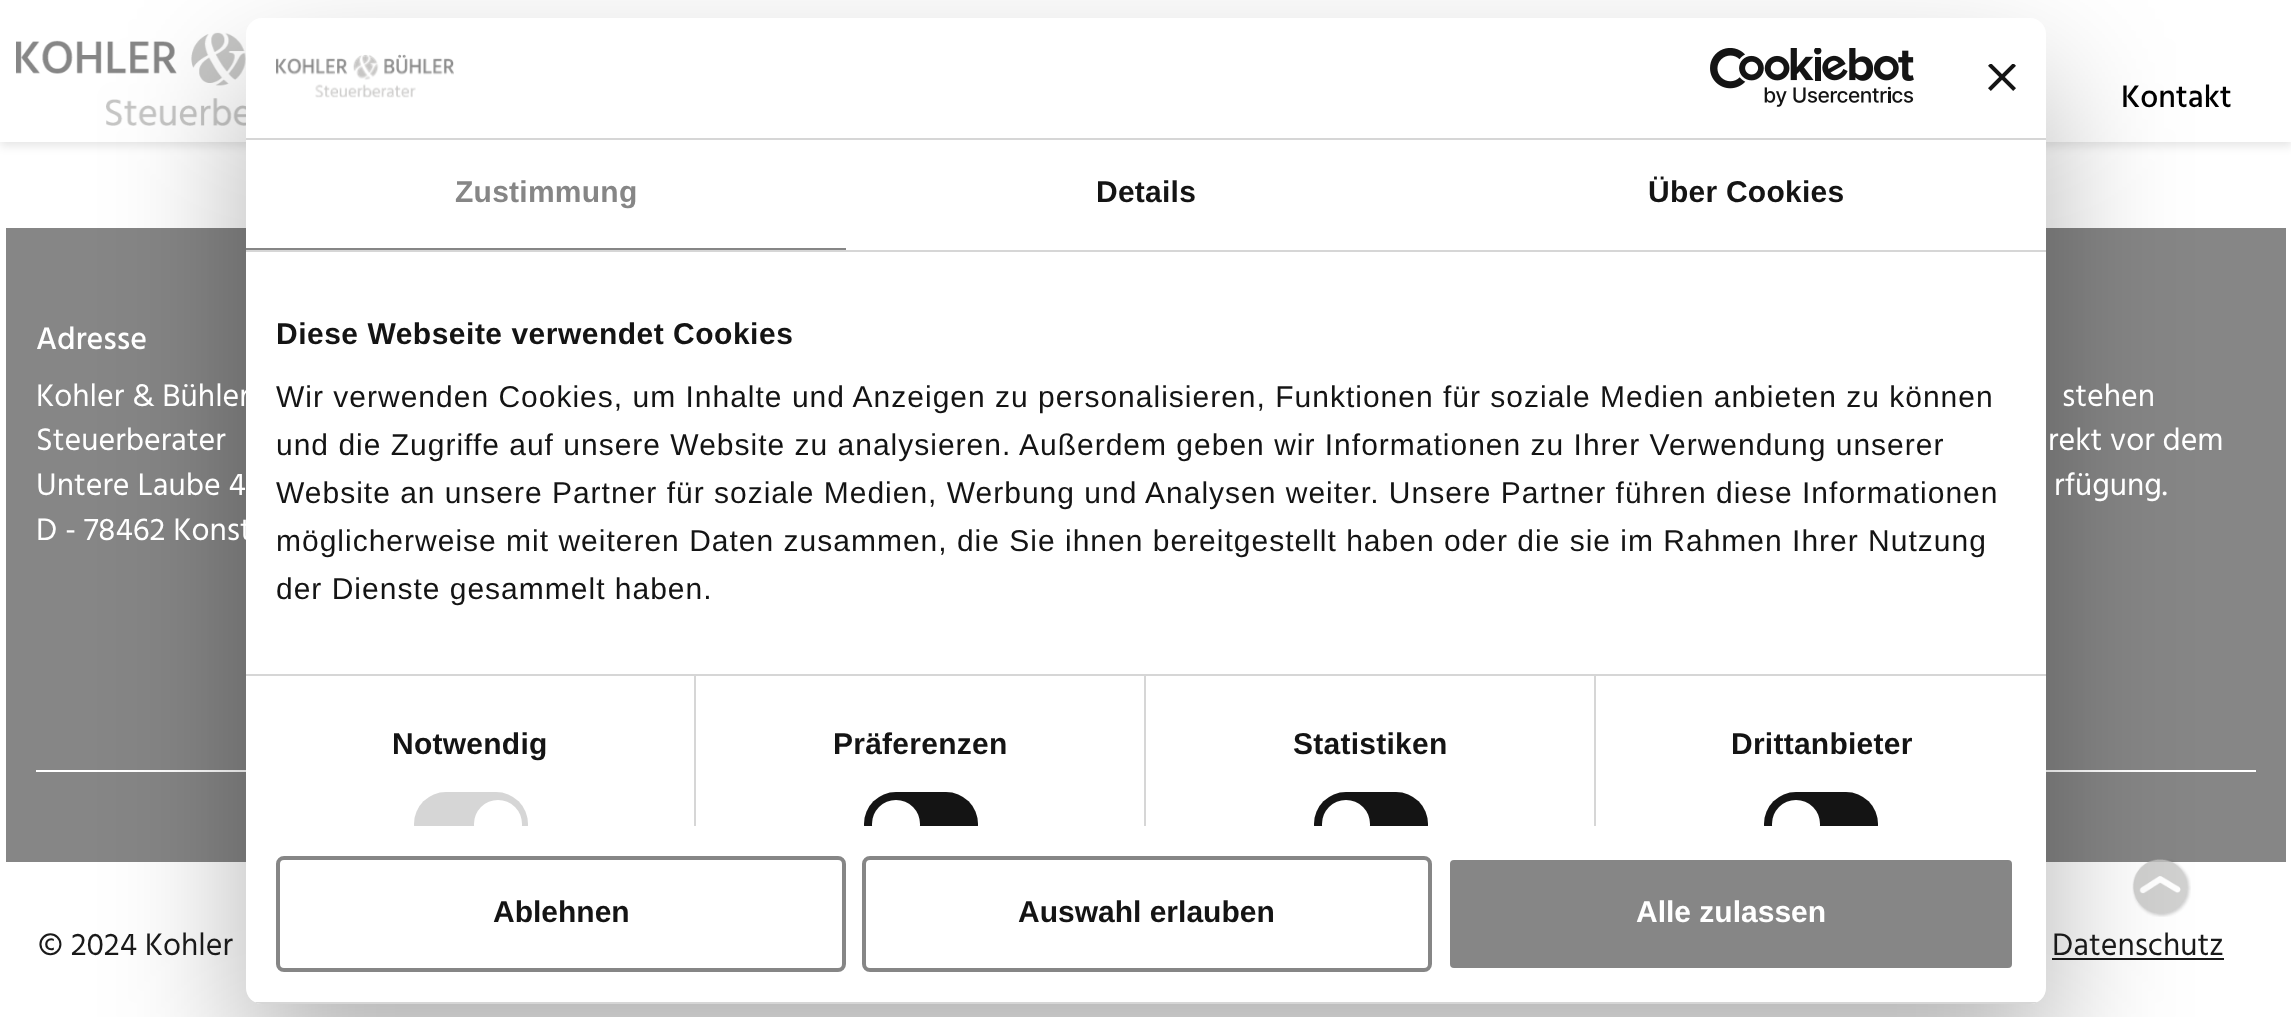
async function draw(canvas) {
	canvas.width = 2291;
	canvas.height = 1017;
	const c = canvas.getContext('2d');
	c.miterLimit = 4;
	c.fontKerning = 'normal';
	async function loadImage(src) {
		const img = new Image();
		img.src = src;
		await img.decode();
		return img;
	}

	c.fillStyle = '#fff';
	c.fillRect(0, 0, 2291, 1017);
	c.fillStyle = '#0000001a';
	c.filter = 'blur(5px)';
	c.beginPath();
	c.rect(0, 4, 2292, 142);
	c.fill();
	c.filter = 'none';
	c.fillStyle = '#fff';
	c.fillRect(0, 0, 2291, 142);
	c.drawImage(await loadImage('img1.png'), 16, 32, 230, 94);
	c.font = '500 32px Hind';
	c.fillStyle = '#000';
	c.fillText('Kontakt', 2121, 107);
	for (const [x, y, w, h, color] of [
		[6, 228, 2280, 634, '#868686'],
		[36, 770, 210, 2, '#fff'],
		[2046, 770, 210, 2, '#fff'],
	]) {
		c.fillStyle = color;
		c.fillRect(x, y, w, h);
	}
	c.drawImage(await loadImage('img5.png'), 2132, 859, 59, 58);
	c.fillStyle = '#1a1a1a';
	c.fillRect(2052, 958, 172, 2);
	c.fillStyle = '#0000004d';
	c.filter = 'blur(68px)';
	c.beginPath();
	c.roundRect(246, 82, 1800, 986, 16);
	c.fill();
	c.filter = 'none';
	c.fillStyle = '#fff';
	c.beginPath();
	c.roundRect(246, 18, 1800, 986, 16);
	c.fill();
	c.fillStyle = '#d6d6d6';
	c.fillRect(246, 138, 1800, 2);
	c.drawImage(await loadImage('img2.png'), 276, 54, 178, 44);
	c.drawImage(await loadImage('img3.png'), 1710, 48, 204, 59);
	c.drawImage(await loadImage('img4.png'), 1988, 64, 28, 27);
	c.fillRect(246, 250, 1800, 2);
	c.fillStyle = '#868686';
	c.fillRect(246, 248, 600, 2);
	c.letterSpacing = '0.25px';
	c.font = 'bold 30px Liberation Sans';
	c.fillText('Zustimmung', 455, 202);
	c.fillStyle = '#141414';
	c.fillText('Details', 1096, 202);
	c.fillText('Über Cookies', 1648, 202);
	c.fillStyle = '#d6d6d6';
	c.fillRect(246, 674, 1800, 2);
	c.letterSpacing = '0.5px';
	c.fillStyle = '#141414';
	c.fillText('Diese Webseite verwendet Cookies', 276, 344);
	c.letterSpacing = '1px';
	c.font = '30px Liberation Sans';
	for (const [text, x, y] of [
		['Wir verwenden Cookies, um Inhalte und Anzeigen zu personalisieren, Funktionen für soziale Medien anbieten zu können', 276, 407],
		['und die Zugriffe auf unsere Website zu analysieren. Außerdem geben wir Informationen zu Ihrer Verwendung unserer', 276, 455],
		['Website an unsere Partner für soziale Medien, Werbung und Analysen weiter. Unsere Partner führen diese Informationen', 276, 503],
		['möglicherweise mit weiteren Daten zusammen, die Sie ihnen bereitgestellt haben oder die sie im Rahmen Ihrer Nutzung', 276, 551],
		['der Dienste gesammelt haben.', 276, 599],
	]) {
		c.fillText(text, x, y);
	}
	c.fillStyle = '#d6d6d6';
	c.fillRect(694, 676, 2, 150);
	c.letterSpacing = '0.25px';
	c.font = 'bold 30px Liberation Sans';
	c.fillStyle = '#141414';
	c.fillText('Notwendig', 392, 754);
	c.save();
	c.beginPath();
	c.rect(246, 252, 1800, 574);
	c.clip();
	c.fillStyle = '#d6d6d6';
	c.beginPath();
	c.roundRect(414, 792, 114, 64, 32);
	c.fill();
	c.fillStyle = '#fff';
	c.beginPath();
	c.arc(498, 824, 24, 0, 2 * Math.PI);
	c.fill();
	c.restore();
	c.fillStyle = '#d6d6d6';
	c.fillRect(1144, 676, 2, 150);
	c.fillStyle = '#141414';
	c.fillText('Präferenzen', 833, 754);
	c.save();
	c.beginPath();
	c.rect(246, 252, 1800, 574);
	c.clip();
	c.beginPath();
	c.roundRect(864, 792, 114, 64, 32);
	c.fill();
	c.fillStyle = '#fff';
	c.beginPath();
	c.arc(896, 824, 24, 0, 2 * Math.PI);
	c.fill();
	c.restore();
	c.fillStyle = '#d6d6d6';
	c.fillRect(1594, 676, 2, 150);
	c.fillStyle = '#141414';
	c.fillText('Statistiken', 1293, 754);
	c.save();
	c.beginPath();
	c.rect(246, 252, 1800, 574);
	c.clip();
	c.beginPath();
	c.roundRect(1314, 792, 114, 64, 32);
	c.fill();
	c.fillStyle = '#fff';
	c.beginPath();
	c.arc(1346, 824, 24, 0, 2 * Math.PI);
	c.fill();
	c.restore();
	c.fillText('Drittanbieter', 1731, 754);
	c.save();
	c.beginPath();
	c.rect(246, 252, 1800, 574);
	c.clip();
	c.beginPath();
	c.roundRect(1764, 792, 114, 64, 32);
	c.fill();
	c.fillStyle = '#fff';
	c.beginPath();
	c.arc(1796, 824, 24, 0, 2 * Math.PI);
	c.fill();
	c.restore();
	c.save();
	c.beginPath();
	c.roundRect(246, 18, 1800, 986, 16);
	c.clip();
	c.fillStyle = '#d6d6d6';
	c.fillRect(246, 1002, 1800, 2);
	c.restore();
	c.beginPath();
	c.roundRect(278, 858, 566, 112, 6);
	c.strokeStyle = '#868686';
	c.lineWidth = 4;
	c.stroke();
	c.letterSpacing = '0px';
	c.fillText('Ablehnen', 493, 922);
	c.beginPath();
	c.roundRect(864, 858, 566, 112, 6);
	c.stroke();
	c.fillText('Auswahl erlauben', 1018, 922);
	c.fillStyle = '#868686';
	c.beginPath();
	c.roundRect(1448, 858, 566, 112, 6);
	c.fill();
	c.strokeStyle = '#fff';
	c.stroke();
	c.fillStyle = '#fff';
	c.fillText('Alle zulassen', 1636, 922);
	c.font = '500 32px Hind';
	c.fillText('Adresse', 36, 349);
	c.font = '32px Hind';
	for (const [text, x, y] of [
		['Kohler & Bühler', 36, 406],
		['Steuerberater', 36, 450],
		['Untere Laube 4', 36, 495],
		['D - 78462 Konst', 36, 540],
		['stehen', 2062, 406],
		['rekt vor dem', 2048, 450],
		['rfügung.', 2054, 495],
	]) {
		c.fillText(text, x, y);
	}
	c.fillStyle = '#1a1a1a';
	c.fillText('© 2024 Kohler', 38, 955);
	c.fillText('Datenschutz', 2052, 955);
}

draw(document.querySelector('canvas'));
